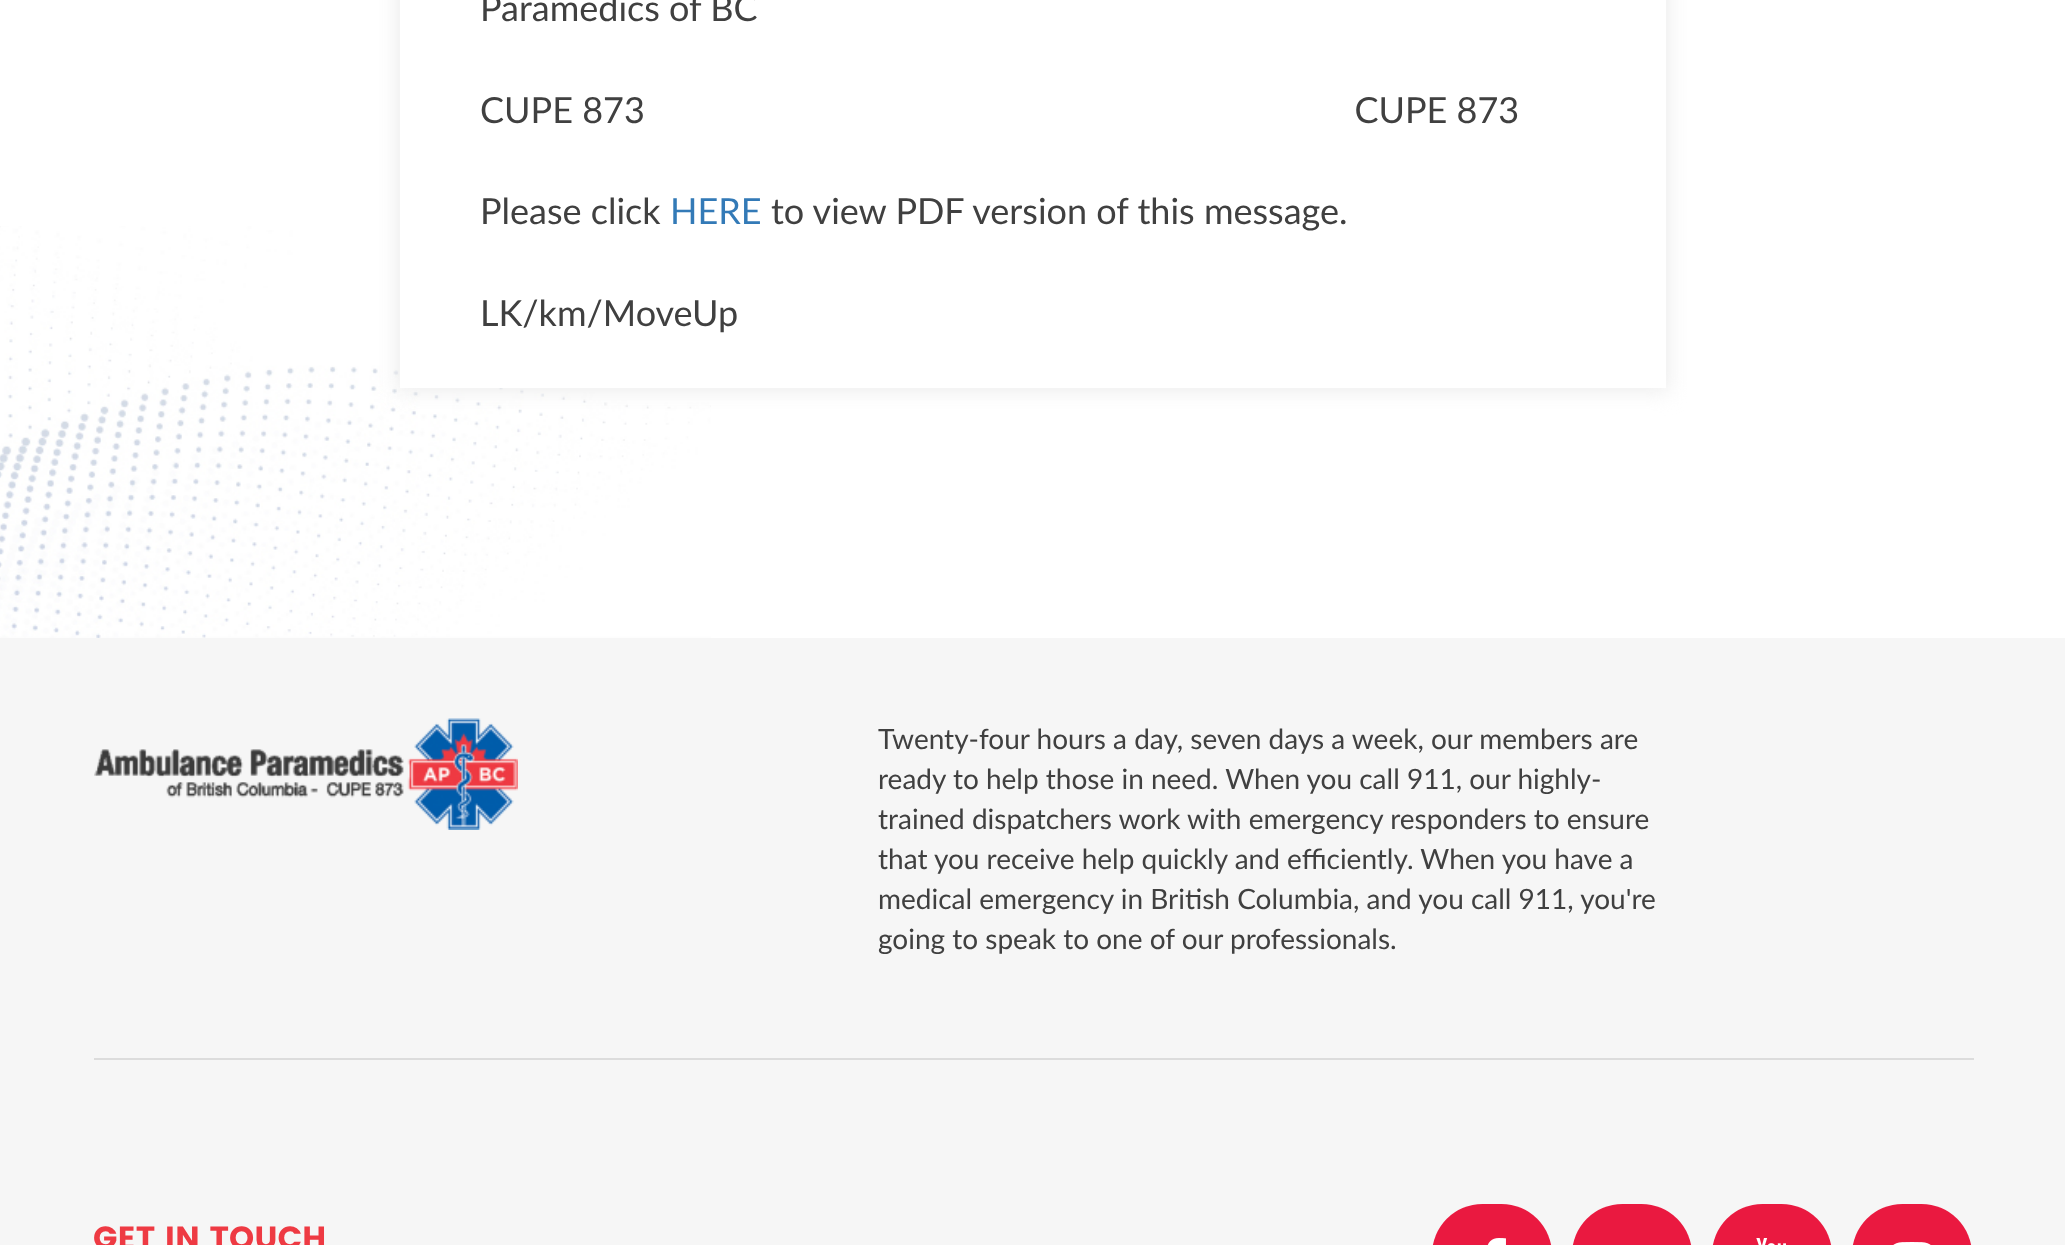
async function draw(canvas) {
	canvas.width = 2065;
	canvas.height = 1245;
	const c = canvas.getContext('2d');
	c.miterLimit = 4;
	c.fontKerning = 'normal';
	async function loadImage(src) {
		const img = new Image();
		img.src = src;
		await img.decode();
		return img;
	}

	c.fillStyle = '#fff';
	c.fillRect(0, 0, 2065, 1245);
	c.drawImage(await loadImage('img1.png'), 0, 226, 711, 412);
	c.fillStyle = '#eee';
	c.filter = 'blur(10px)';
	c.beginPath();
	c.rect(396, -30, 1274, 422);
	c.fill();
	c.filter = 'none';
	c.fillStyle = '#fff';
	c.fillRect(400, 0, 1266, 388);
	c.font = '36px Lato';
	c.fillStyle = '#404040';
	for (const [text, x, y] of [
		['Paramedics of BC', 480, 21],
		['CUPE 873                                                                             CUPE 873', 480, 123],
		['Please click', 480, 224],
	]) {
		c.fillText(text, x, y);
	}
	c.fillStyle = '#337ab7';
	c.fillText('HERE', 670, 224);
	c.fillStyle = '#404040';
	c.fillText('to view PDF version of this message.', 771, 224);
	c.fillText('LK/km/MoveUp', 480, 326);
	c.fillStyle = '#f6f6f6';
	c.fillRect(0, 638, 2065, 607);
	c.drawImage(await loadImage('img2.png'), 94, 718, 424, 112);
	c.font = '28px Lato';
	c.fillStyle = '#404040';
	for (const [text, x, y] of [
		['Twenty-four hours a day, seven days a week, our members are', 878, 749],
		['ready to help those in need. When you call 911, our highly-', 878, 789],
		['trained dispatchers work with emergency responders to ensure', 878, 829],
		['that you receive help quickly and efficiently. When you have a', 878, 869],
		['medical emergency in British Columbia, and you call 911, you\'re', 878, 909],
		['going to speak to one of our professionals.', 878, 949],
	]) {
		c.fillText(text, x, y);
	}
	c.fillStyle = '#dcdcdc';
	c.fillRect(94, 1058, 1880, 2);
	c.font = 'bold 32px Poppins';
	c.fillStyle = '#ee3a43';
	c.fillText('GET IN TOUCH', 93, 1249);
	c.fillStyle = '#ea1940';
	c.beginPath();
	c.roundRect(1432, 1204, 120, 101, 60);
	c.fill();
	c.drawImage(await loadImage('img3.png'), 1487, 1238, 19, 7);
	c.beginPath();
	c.roundRect(1572, 1204, 120, 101, 60);
	c.fill();
	c.beginPath();
	c.roundRect(1712, 1204, 120, 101, 60);
	c.fill();
	c.drawImage(await loadImage('img4.png'), 1756, 1238, 30, 7);
	c.beginPath();
	c.roundRect(1852, 1204, 120, 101, 60);
	c.fill();
	c.drawImage(await loadImage('img5.png'), 1893, 1242, 38, 3);
}

draw(document.querySelector('canvas'));
